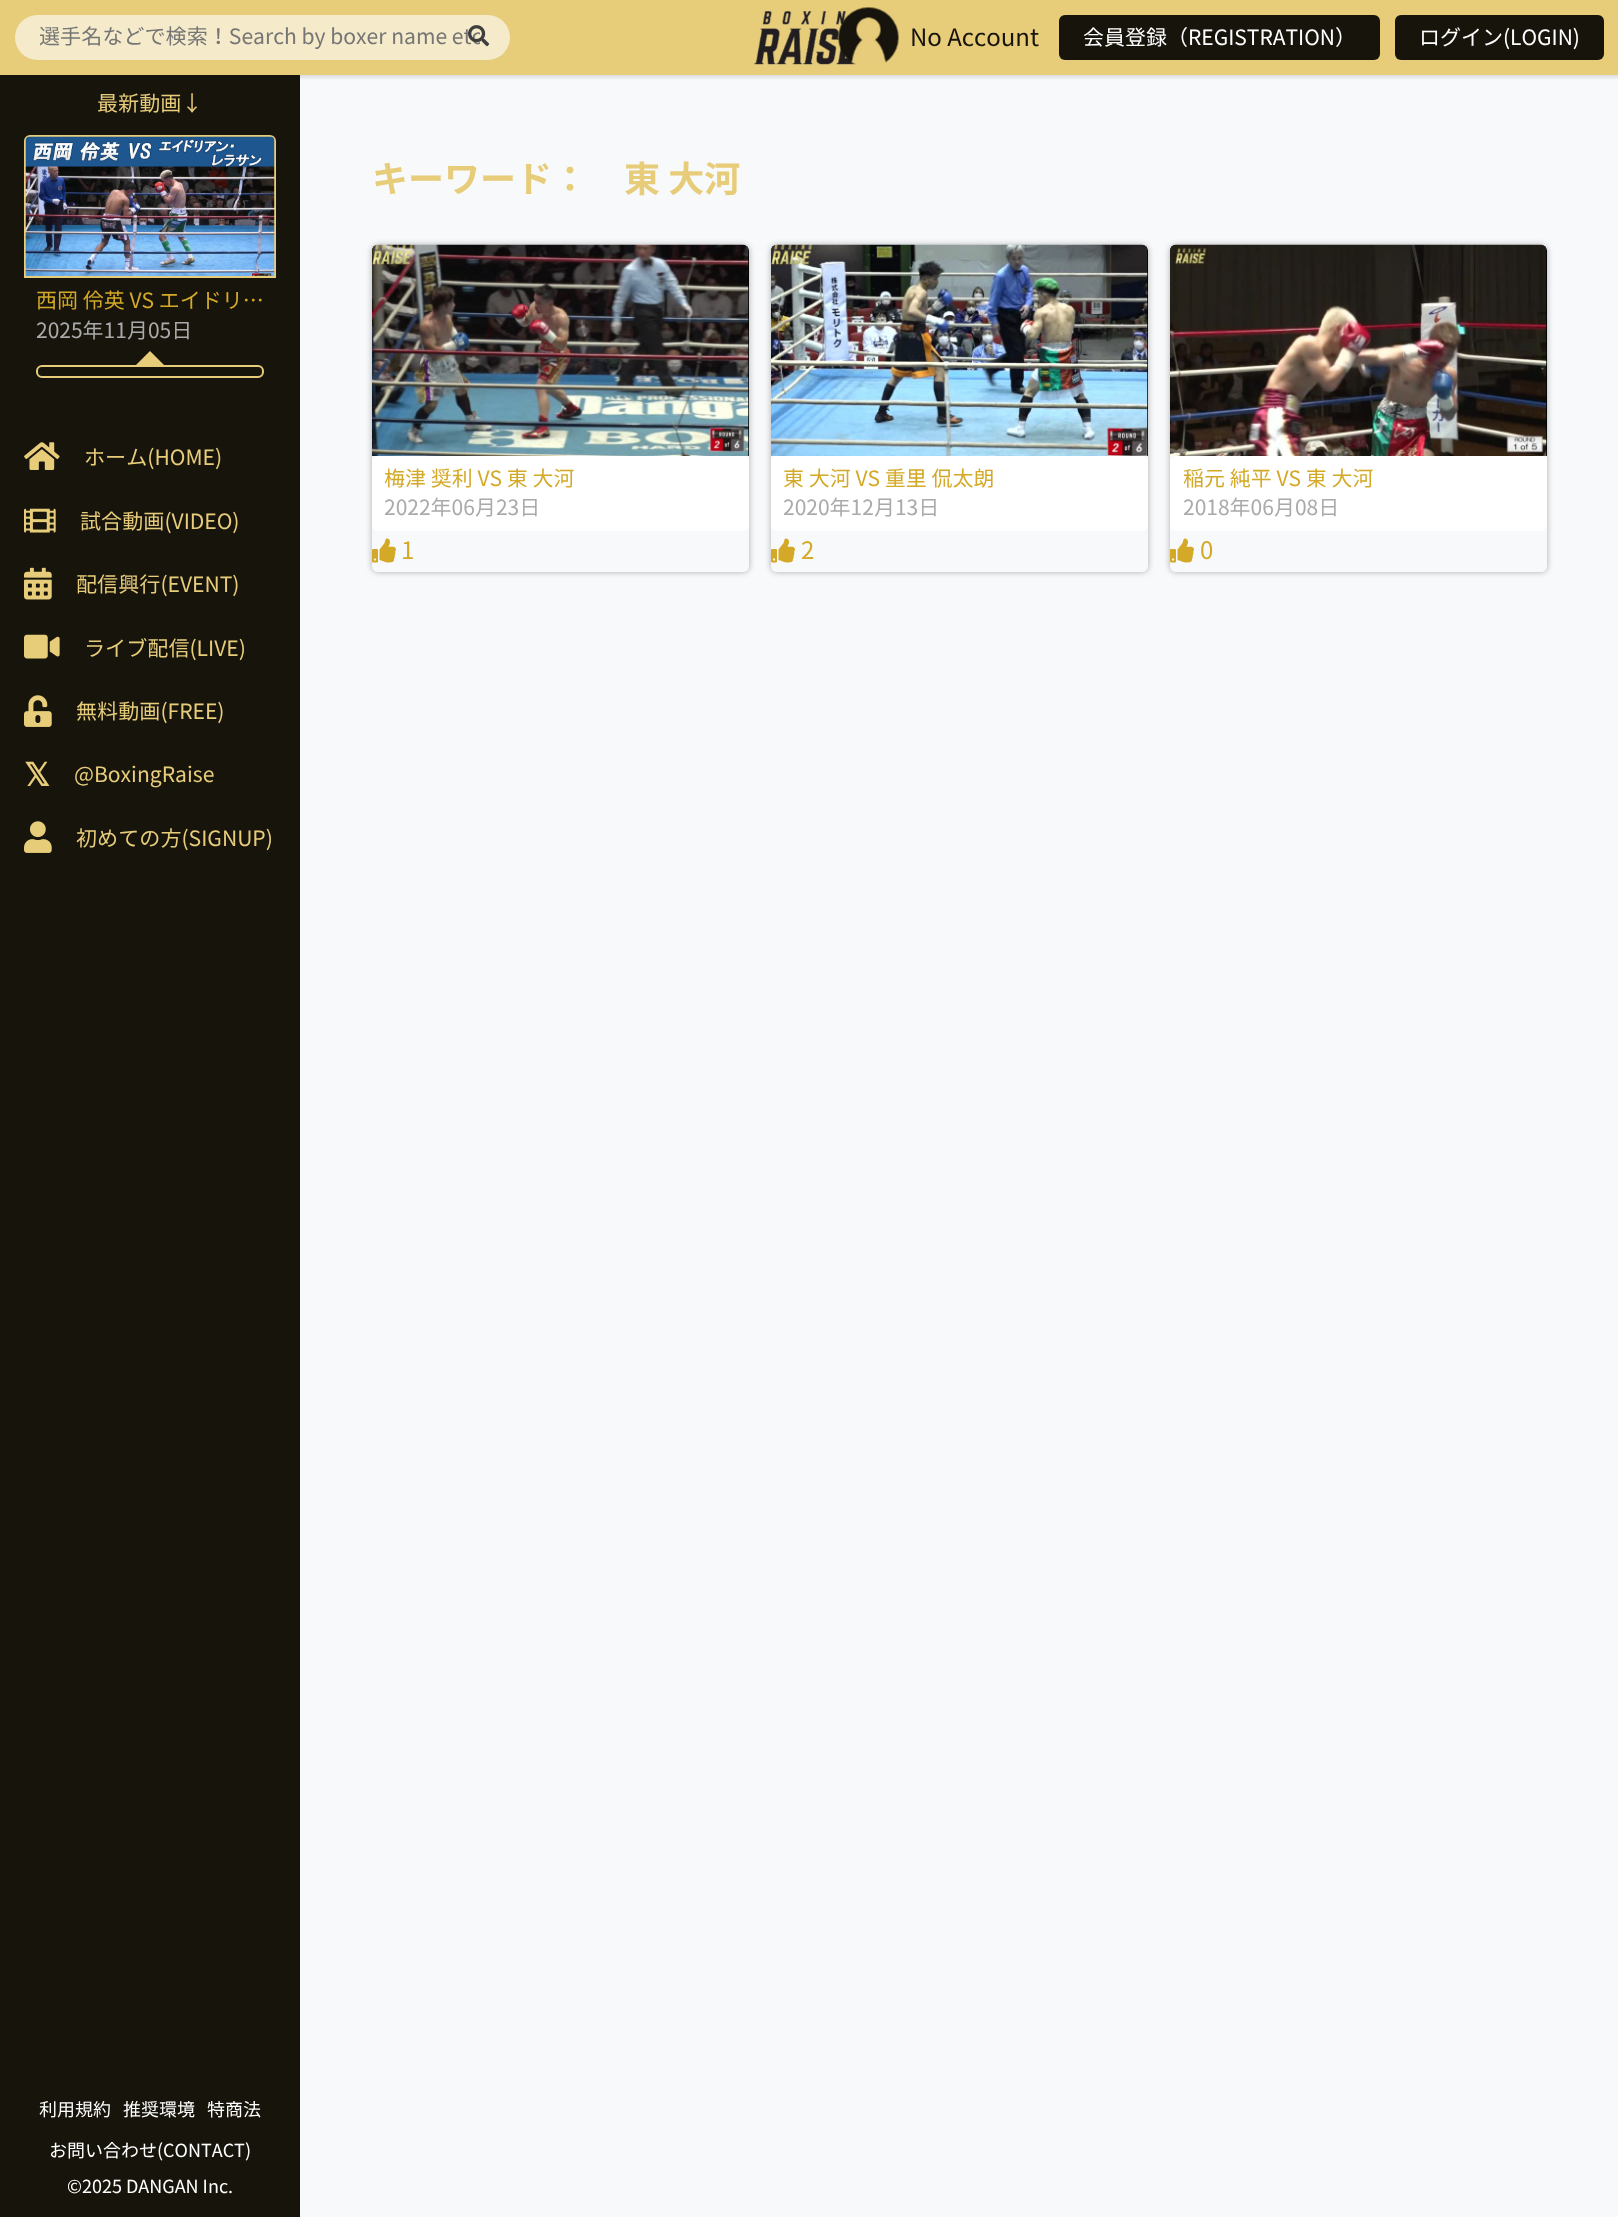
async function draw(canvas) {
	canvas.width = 1618;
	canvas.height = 2217;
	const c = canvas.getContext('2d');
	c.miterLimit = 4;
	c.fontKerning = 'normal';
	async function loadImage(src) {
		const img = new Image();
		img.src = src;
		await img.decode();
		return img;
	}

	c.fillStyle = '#f8f9fa';
	c.fillRect(0, 0, 1618, 2217);
	c.fillStyle = '#0000001a';
	c.filter = 'blur(1.5px)';
	c.beginPath();
	c.rect(0, 3, 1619, 75);
	c.fill();
	c.filter = 'none';
	c.fillStyle = '#17140c';
	c.fillRect(0, 75, 300, 2142);
	c.fillStyle = '#e7cc7a';
	c.fillRect(0, 0, 1618, 75);
	c.fillStyle = '#f5ebca';
	c.beginPath();
	c.roundRect(15, 15, 495, 45, 22.5);
	c.fill();
	c.save();
	c.beginPath();
	c.rect(39, 23, 441, 31);
	c.clip();
	c.font = '21.1px Noto Sans CJK JP';
	c.fillStyle = '#757575';
	c.fillText('選手名などで検索！Search by boxer name etc', 39, 44);
	c.restore();
	c.drawImage(await loadImage('img1.png'), 468, 25, 22, 22);
	c.font = '21.1px Noto Sans CJK JP';
	c.fillStyle = '#e7cc7a';
	c.fillText('最新動画↓', 97, 111);
	c.beginPath();
	c.roundRect(25, 136, 250, 141, [5, 5, 0, 0]);
	c.strokeStyle = '#e7cc7a';
	c.lineWidth = 2;
	c.stroke();
	c.drawImage(await loadImage('img2.png'), 25, 136, 250, 140);
	c.font = '21px Noto Sans CJK JP';
	c.fillStyle = '#d4a927';
	c.fillText('西岡 伶英 VS エイドリ…', 36, 308);
	c.fillStyle = '#aaa';
	c.fillText('2025年11月05日', 36, 338);
	c.beginPath();
	c.roundRect(37, 366, 226, 11, 5);
	c.stroke();
	c.fillStyle = '#e7cc7a';
	c.beginPath();
	c.moveTo(165, 366);
	c.lineTo(135, 366);
	c.lineTo(150, 351);
	c.closePath();
	c.fill();
	c.drawImage(await loadImage('img3.png'), 24, 442, 36, 28);
	c.font = '21.1px Noto Sans CJK JP';
	c.fillText('ホーム(HOME)', 84, 465);
	c.drawImage(await loadImage('img4.png'), 24, 508, 32, 25);
	c.fillText('試合動画(VIDEO)', 80, 529);
	c.drawImage(await loadImage('img5.png'), 24, 567, 28, 33);
	c.fillText('配信興行(EVENT)', 76, 592);
	c.drawImage(await loadImage('img6.png'), 24, 634, 36, 25);
	c.fillText('ライブ配信(LIVE)', 84, 656);
	c.drawImage(await loadImage('img7.png'), 24, 695, 28, 32);
	c.fillText('無料動画(FREE)', 76, 719);
	c.font = 'bold 32px DejaVu Sans';
	c.fillText('𝕏', 24, 786);
	c.font = '21.1px Noto Sans CJK JP';
	c.fillText('@BoxingRaise', 74, 782);
	c.drawImage(await loadImage('img8.png'), 24, 821, 28, 32);
	c.fillText('初めての方(SIGNUP)', 76, 846);
	c.font = '18px Noto Sans CJK JP';
	c.fillStyle = '#fff';
	for (const [text, x, y] of [
		['利用規約', 39, 2116],
		['推奨環境', 123, 2116],
		['特商法', 207, 2116],
		['お問い合わせ(CONTACT)', 49, 2157],
		['©2025 DANGAN Inc.', 67, 2193],
	]) {
		c.fillText(text, x, y);
	}
	c.drawImage(await loadImage('img9.png'), 753, 11, 104, 54);
	c.drawImage(await loadImage('img10.png'), 838, 7, 61, 58);
	c.font = '24px Noto Sans CJK JP';
	c.fillStyle = '#17140c';
	c.fillText('No Account', 910, 46);
	c.beginPath();
	c.roundRect(1059, 15, 321, 45, 6);
	c.fill();
	c.font = '21px Noto Sans CJK JP';
	c.fillStyle = '#fff';
	c.fillText('会員登録（REGISTRATION）', 1083, 45);
	c.fillStyle = '#17140c';
	c.beginPath();
	c.roundRect(1395, 15, 209, 45, 6);
	c.fill();
	c.fillStyle = '#fff';
	c.fillText('ログイン(LOGIN)', 1419, 45);
	c.font = 'bold 36px Noto Sans CJK JP';
	c.fillStyle = '#e7cc7a';
	c.fillText('キーワード：　東 大河', 372, 192);
	c.save();
	c.beginPath();
	c.moveTo(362, 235);
	c.lineTo(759, 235);
	c.lineTo(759, 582);
	c.lineTo(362, 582);
	c.closePath();
	c.moveTo(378, 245);
	c.lineTo(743, 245);
	c.bezierCurveTo(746.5, 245, 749, 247.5, 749, 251);
	c.lineTo(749, 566);
	c.bezierCurveTo(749, 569.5, 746.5, 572, 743, 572);
	c.lineTo(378, 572);
	c.bezierCurveTo(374.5, 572, 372, 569.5, 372, 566);
	c.lineTo(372, 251);
	c.bezierCurveTo(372, 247.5, 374.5, 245, 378, 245);
	c.closePath();
	c.clip('evenodd');
	c.fillStyle = '#0000004d';
	c.filter = 'blur(3px)';
	c.beginPath();
	c.roundRect(372, 245, 377, 327, 6);
	c.fill();
	c.filter = 'none';
	c.restore();
	c.fillStyle = '#000';
	c.beginPath();
	c.roundRect(372, 245, 377, 211, [6, 6, 0, 0]);
	c.fill();
	c.drawImage(await loadImage('img11.png'), 372, 244, 377, 212);
	c.fillStyle = '#fff';
	c.beginPath();
	c.roundRect(372, 456, 377, 75, 6);
	c.fill();
	c.font = '21px Noto Sans CJK JP';
	c.fillStyle = '#d4a927';
	c.fillText('梅津 奨利 VS 東 大河', 384, 486);
	c.fillStyle = '#aaa';
	c.fillText('2022年06月23日', 384, 515);
	c.drawImage(await loadImage('img12.png'), 372, 538, 24, 25);
	c.font = '24px Noto Sans CJK JP';
	c.fillStyle = '#d4a927';
	c.fillText('1', 401, 559);
	c.save();
	c.beginPath();
	c.moveTo(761, 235);
	c.lineTo(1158, 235);
	c.lineTo(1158, 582);
	c.lineTo(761, 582);
	c.closePath();
	c.moveTo(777, 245);
	c.lineTo(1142, 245);
	c.bezierCurveTo(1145.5, 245, 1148, 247.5, 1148, 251);
	c.lineTo(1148, 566);
	c.bezierCurveTo(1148, 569.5, 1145.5, 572, 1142, 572);
	c.lineTo(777, 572);
	c.bezierCurveTo(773.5, 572, 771, 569.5, 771, 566);
	c.lineTo(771, 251);
	c.bezierCurveTo(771, 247.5, 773.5, 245, 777, 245);
	c.closePath();
	c.clip('evenodd');
	c.fillStyle = '#0000004d';
	c.filter = 'blur(3px)';
	c.beginPath();
	c.roundRect(771, 245, 377, 327, 6);
	c.fill();
	c.filter = 'none';
	c.restore();
	c.fillStyle = '#000';
	c.beginPath();
	c.roundRect(771, 245, 377, 211, [6, 6, 0, 0]);
	c.fill();
	c.drawImage(await loadImage('img13.png'), 771, 244, 377, 212);
	c.fillStyle = '#fff';
	c.beginPath();
	c.roundRect(771, 456, 377, 75, 6);
	c.fill();
	c.font = '21px Noto Sans CJK JP';
	c.fillStyle = '#d4a927';
	c.fillText('東 大河 VS 重里 侃太朗', 783, 486);
	c.fillStyle = '#aaa';
	c.fillText('2020年12月13日', 783, 515);
	c.drawImage(await loadImage('img12.png'), 771, 538, 24, 25);
	c.font = '24px Noto Sans CJK JP';
	c.fillStyle = '#d4a927';
	c.fillText('2', 801, 559);
	c.save();
	c.beginPath();
	c.moveTo(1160, 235);
	c.lineTo(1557, 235);
	c.lineTo(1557, 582);
	c.lineTo(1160, 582);
	c.closePath();
	c.moveTo(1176, 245);
	c.lineTo(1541, 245);
	c.bezierCurveTo(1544.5, 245, 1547, 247.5, 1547, 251);
	c.lineTo(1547, 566);
	c.bezierCurveTo(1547, 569.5, 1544.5, 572, 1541, 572);
	c.lineTo(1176, 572);
	c.bezierCurveTo(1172.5, 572, 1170, 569.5, 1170, 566);
	c.lineTo(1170, 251);
	c.bezierCurveTo(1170, 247.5, 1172.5, 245, 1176, 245);
	c.closePath();
	c.clip('evenodd');
	c.fillStyle = '#0000004d';
	c.filter = 'blur(3px)';
	c.beginPath();
	c.roundRect(1170, 245, 377, 327, 6);
	c.fill();
	c.filter = 'none';
	c.restore();
	c.fillStyle = '#000';
	c.beginPath();
	c.roundRect(1170, 245, 377, 211, [6, 6, 0, 0]);
	c.fill();
	c.drawImage(await loadImage('img14.png'), 1170, 244, 377, 212);
	c.fillStyle = '#fff';
	c.beginPath();
	c.roundRect(1170, 456, 377, 75, 6);
	c.fill();
	c.font = '21px Noto Sans CJK JP';
	c.fillStyle = '#d4a927';
	c.fillText('稲元 純平 VS 東 大河', 1183, 486);
	c.fillStyle = '#aaa';
	c.fillText('2018年06月08日', 1183, 515);
	c.drawImage(await loadImage('img12.png'), 1170, 538, 24, 25);
	c.font = '24px Noto Sans CJK JP';
	c.fillStyle = '#d4a927';
	c.fillText('0', 1200, 559);
}

draw(document.querySelector('canvas'));
